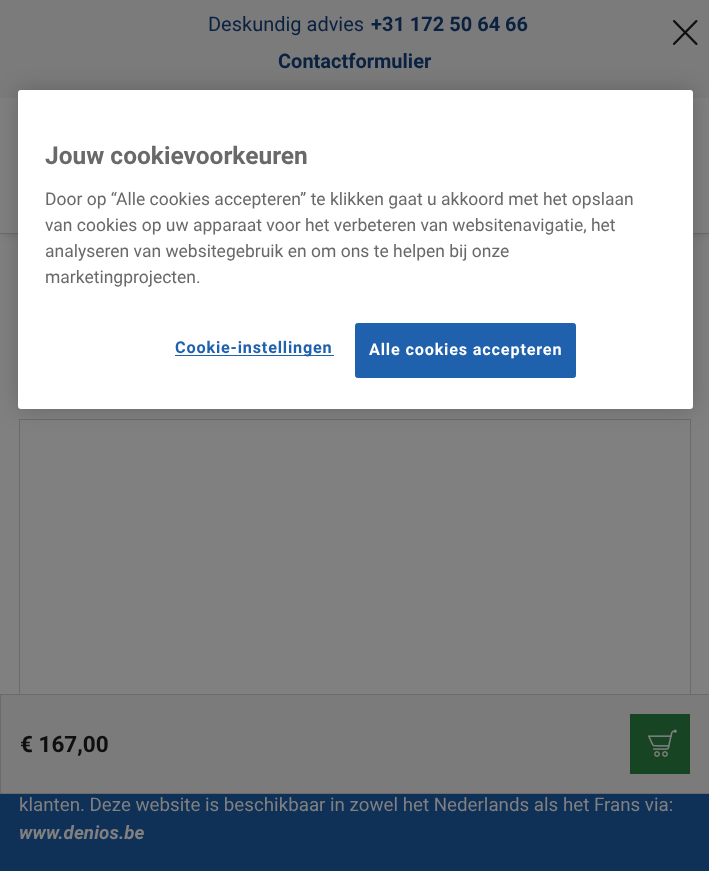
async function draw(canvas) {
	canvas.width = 709;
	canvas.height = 871;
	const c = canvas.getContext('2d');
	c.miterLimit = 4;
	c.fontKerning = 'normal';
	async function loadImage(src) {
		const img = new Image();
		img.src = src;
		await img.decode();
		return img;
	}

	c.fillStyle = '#808080';
	c.fillRect(0, 0, 709, 871);
	c.fillStyle = '#00000026';
	c.filter = 'blur(4.5px)';
	c.beginPath();
	c.rect(3, 5, 705, 229);
	c.fill();
	c.filter = 'none';
	for (const [x, y, w, h, color] of [
		[0, 98, 709, 135, '#808080'],
		[0, 233, 709, 1, '#6b6b6c'],
		[0, 0, 709, 98, '#7b7b7c'],
	]) {
		c.fillStyle = color;
		c.fillRect(x, y, w, h);
	}
	c.font = '20px Roboto';
	c.fillStyle = '#0a2140';
	c.fillText('Deskundig advies', 208, 31);
	c.font = 'bold 20px Roboto';
	c.fillText('+31 172 50 64 66', 371, 31);
	c.drawImage(await loadImage('img1.png'), 673, 20, 25, 25);
	c.fillText('Contactformulier', 278, 68);
	c.strokeStyle = '#6b6b6c';
	c.strokeRect(19.5, 419.5, 671, 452);
	c.fillStyle = '#7b7b7c';
	c.beginPath();
	c.rect(0.5, 694.5, 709, 99);
	c.fill();
	c.stroke();
	c.font = 'bold 22.5px Roboto';
	c.fillStyle = '#0f0f0f';
	c.fillText('€ 167,00', 20, 752);
	c.fillStyle = '#174423';
	c.fillRect(630, 714, 60, 60);
	c.drawImage(await loadImage('img2.png'), 648, 729, 29, 28);
	c.fillStyle = '#103157';
	c.fillRect(0, 794, 709, 77);
	c.font = '18.75px Roboto';
	c.fillStyle = '#808080';
	c.fillText('klanten. Deze website is beschikbaar in zowel het Nederlands als het Frans via:', 19, 811);
	c.font = 'italic bold 18.75px Roboto';
	c.fillText('www.denios.be', 19, 839);
	c.fillStyle = '#00000033';
	c.filter = 'blur(11px)';
	c.beginPath();
	c.roundRect(18, 90, 675, 319, 3);
	c.fill();
	c.filter = 'none';
	c.fillStyle = '#fff';
	c.beginPath();
	c.roundRect(18, 90, 675, 319, 3);
	c.fill();
	c.font = 'bold 24.5px Roboto';
	c.fillStyle = '#696969';
	c.fillText('Jouw cookievoorkeuren', 45, 164);
	c.font = '17.5px Roboto';
	for (const [text, x, y] of [
		['Door op “Alle cookies accepteren” te klikken gaat u akkoord met het opslaan', 45, 205],
		['van cookies op uw apparaat voor het verbeteren van websitenavigatie, het', 45, 231],
		['analyseren van websitegebruik en om ons te helpen bij onze', 45, 257],
		['marketingprojecten.', 45, 283],
	]) {
		c.fillText(text, x, y);
	}
	c.fillStyle = '#2061ae';
	c.fillRect(175, 355, 159, 1);
	c.letterSpacing = '0.8px';
	c.font = 'bold 16.25px Roboto';
	c.fillText('Cookie-instellingen', 175, 353);
	c.beginPath();
	c.roundRect(355.5, 323.5, 220, 54, 2);
	c.fill();
	c.strokeStyle = '#2061ae';
	c.stroke();
	c.fillStyle = '#fff';
	c.fillText('Alle cookies accepteren', 369, 355);
}

draw(document.querySelector('canvas'));
